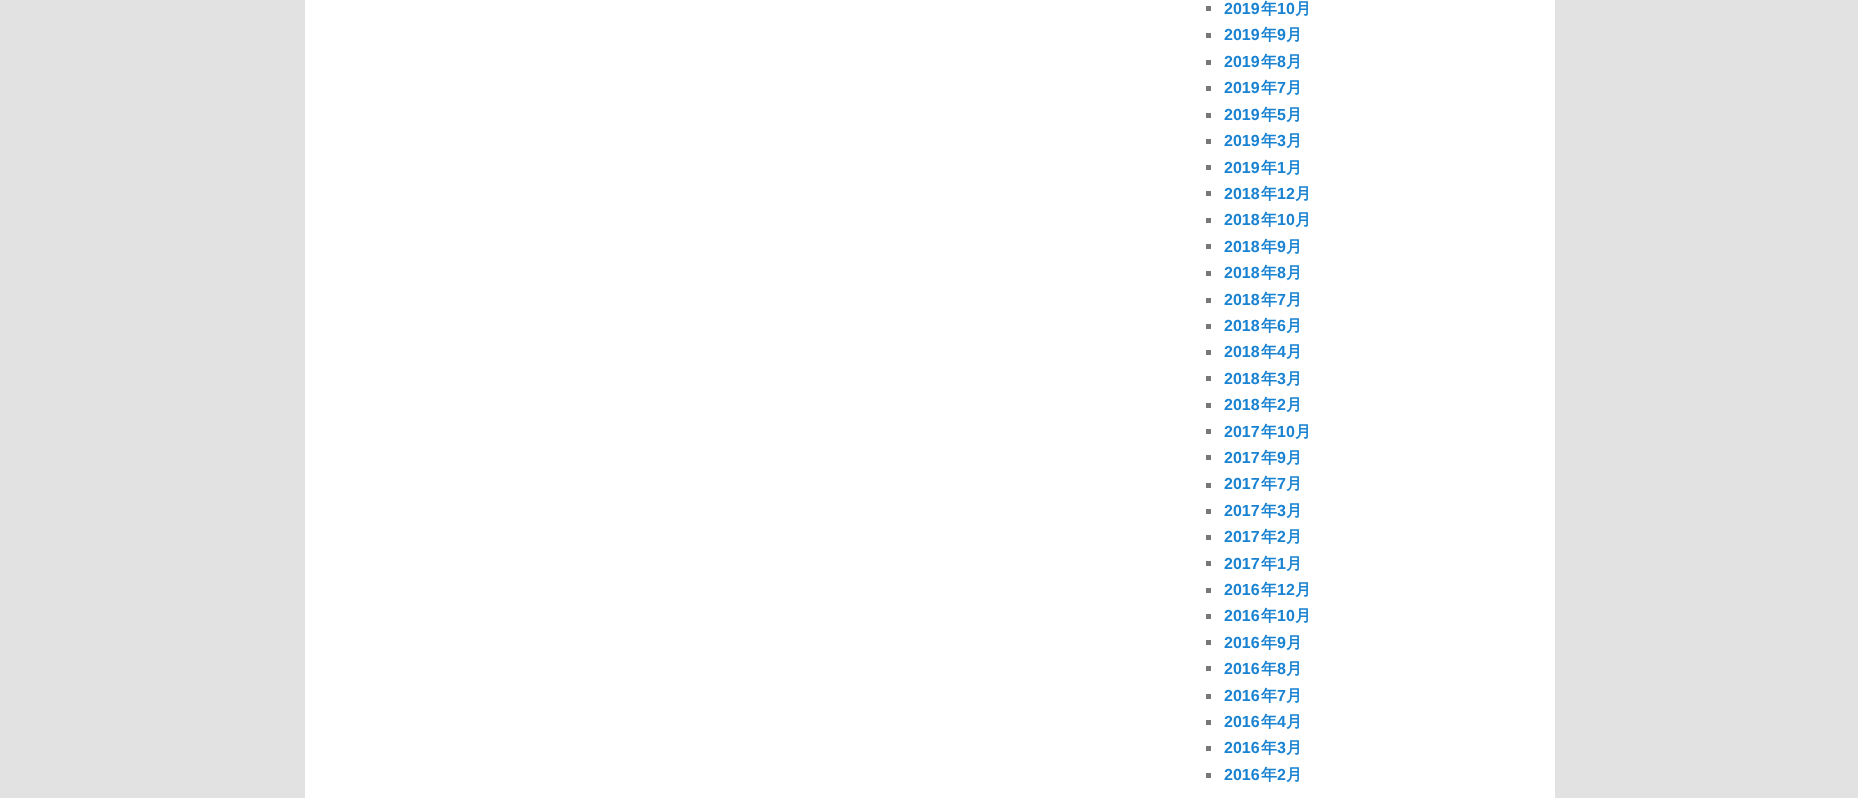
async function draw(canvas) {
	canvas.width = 1858;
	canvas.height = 798;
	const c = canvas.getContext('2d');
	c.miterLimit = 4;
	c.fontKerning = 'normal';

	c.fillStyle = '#e2e2e2';
	c.fillRect(0, 0, 1858, 798);
	c.fillStyle = '#fff';
	c.fillRect(305, 0, 1250, 798);
	c.fillStyle = '#777';
	c.fillRect(1206, 6, 5, 5);
	c.font = 'bold 16px Liberation Sans';
	c.fillStyle = '#1982d1';
	c.fillText('2019', 1224, 14);
	c.font = 'bold 16px WenQuanYi Zen Hei';
	c.fillText('年', 1261, 14);
	c.font = 'bold 16px Liberation Sans';
	c.fillText('10', 1277, 14);
	c.font = 'bold 16px WenQuanYi Zen Hei';
	c.fillText('月', 1295, 14);
	c.fillStyle = '#777';
	c.fillRect(1206, 33, 5, 5);
	c.font = 'bold 16px Liberation Sans';
	c.fillStyle = '#1982d1';
	c.fillText('2019', 1224, 40);
	c.font = 'bold 16px WenQuanYi Zen Hei';
	c.fillText('年', 1261, 40);
	c.font = 'bold 16px Liberation Sans';
	c.fillText('9', 1277, 40);
	c.font = 'bold 16px WenQuanYi Zen Hei';
	c.fillText('月', 1286, 40);
	c.fillStyle = '#777';
	c.fillRect(1206, 60, 5, 5);
	c.font = 'bold 16px Liberation Sans';
	c.fillStyle = '#1982d1';
	c.fillText('2019', 1224, 67);
	c.font = 'bold 16px WenQuanYi Zen Hei';
	c.fillText('年', 1261, 67);
	c.font = 'bold 16px Liberation Sans';
	c.fillText('8', 1277, 67);
	c.font = 'bold 16px WenQuanYi Zen Hei';
	c.fillText('月', 1286, 67);
	c.fillStyle = '#777';
	c.fillRect(1206, 86, 5, 5);
	c.font = 'bold 16px Liberation Sans';
	c.fillStyle = '#1982d1';
	c.fillText('2019', 1224, 93);
	c.font = 'bold 16px WenQuanYi Zen Hei';
	c.fillText('年', 1261, 93);
	c.font = 'bold 16px Liberation Sans';
	c.fillText('7', 1277, 93);
	c.font = 'bold 16px WenQuanYi Zen Hei';
	c.fillText('月', 1286, 93);
	c.fillStyle = '#777';
	c.fillRect(1206, 113, 5, 5);
	c.font = 'bold 16px Liberation Sans';
	c.fillStyle = '#1982d1';
	c.fillText('2019', 1224, 120);
	c.font = 'bold 16px WenQuanYi Zen Hei';
	c.fillText('年', 1261, 120);
	c.font = 'bold 16px Liberation Sans';
	c.fillText('5', 1277, 120);
	c.font = 'bold 16px WenQuanYi Zen Hei';
	c.fillText('月', 1286, 120);
	c.fillStyle = '#777';
	c.fillRect(1206, 139, 5, 5);
	c.font = 'bold 16px Liberation Sans';
	c.fillStyle = '#1982d1';
	c.fillText('2019', 1224, 146);
	c.font = 'bold 16px WenQuanYi Zen Hei';
	c.fillText('年', 1261, 146);
	c.font = 'bold 16px Liberation Sans';
	c.fillText('3', 1277, 146);
	c.font = 'bold 16px WenQuanYi Zen Hei';
	c.fillText('月', 1286, 146);
	c.fillStyle = '#777';
	c.fillRect(1206, 165, 5, 5);
	c.font = 'bold 16px Liberation Sans';
	c.fillStyle = '#1982d1';
	c.fillText('2019', 1224, 173);
	c.font = 'bold 16px WenQuanYi Zen Hei';
	c.fillText('年', 1261, 173);
	c.font = 'bold 16px Liberation Sans';
	c.fillText('1', 1277, 173);
	c.font = 'bold 16px WenQuanYi Zen Hei';
	c.fillText('月', 1286, 173);
	c.fillStyle = '#777';
	c.fillRect(1206, 191, 5, 5);
	c.font = 'bold 16px Liberation Sans';
	c.fillStyle = '#1982d1';
	c.fillText('2018', 1224, 199);
	c.font = 'bold 16px WenQuanYi Zen Hei';
	c.fillText('年', 1261, 199);
	c.font = 'bold 16px Liberation Sans';
	c.fillText('12', 1277, 199);
	c.font = 'bold 16px WenQuanYi Zen Hei';
	c.fillText('月', 1295, 199);
	c.fillStyle = '#777';
	c.fillRect(1206, 218, 5, 5);
	c.font = 'bold 16px Liberation Sans';
	c.fillStyle = '#1982d1';
	c.fillText('2018', 1224, 225);
	c.font = 'bold 16px WenQuanYi Zen Hei';
	c.fillText('年', 1261, 225);
	c.font = 'bold 16px Liberation Sans';
	c.fillText('10', 1277, 225);
	c.font = 'bold 16px WenQuanYi Zen Hei';
	c.fillText('月', 1295, 225);
	c.fillStyle = '#777';
	c.fillRect(1206, 244, 5, 5);
	c.font = 'bold 16px Liberation Sans';
	c.fillStyle = '#1982d1';
	c.fillText('2018', 1224, 252);
	c.font = 'bold 16px WenQuanYi Zen Hei';
	c.fillText('年', 1261, 252);
	c.font = 'bold 16px Liberation Sans';
	c.fillText('9', 1277, 252);
	c.font = 'bold 16px WenQuanYi Zen Hei';
	c.fillText('月', 1286, 252);
	c.fillStyle = '#777';
	c.fillRect(1206, 271, 5, 5);
	c.font = 'bold 16px Liberation Sans';
	c.fillStyle = '#1982d1';
	c.fillText('2018', 1224, 278);
	c.font = 'bold 16px WenQuanYi Zen Hei';
	c.fillText('年', 1261, 278);
	c.font = 'bold 16px Liberation Sans';
	c.fillText('8', 1277, 278);
	c.font = 'bold 16px WenQuanYi Zen Hei';
	c.fillText('月', 1286, 278);
	c.fillStyle = '#777';
	c.fillRect(1206, 298, 5, 5);
	c.font = 'bold 16px Liberation Sans';
	c.fillStyle = '#1982d1';
	c.fillText('2018', 1224, 305);
	c.font = 'bold 16px WenQuanYi Zen Hei';
	c.fillText('年', 1261, 305);
	c.font = 'bold 16px Liberation Sans';
	c.fillText('7', 1277, 305);
	c.font = 'bold 16px WenQuanYi Zen Hei';
	c.fillText('月', 1286, 305);
	c.fillStyle = '#777';
	c.fillRect(1206, 324, 5, 5);
	c.font = 'bold 16px Liberation Sans';
	c.fillStyle = '#1982d1';
	c.fillText('2018', 1224, 331);
	c.font = 'bold 16px WenQuanYi Zen Hei';
	c.fillText('年', 1261, 331);
	c.font = 'bold 16px Liberation Sans';
	c.fillText('6', 1277, 331);
	c.font = 'bold 16px WenQuanYi Zen Hei';
	c.fillText('月', 1286, 331);
	c.fillStyle = '#777';
	c.fillRect(1206, 350, 5, 5);
	c.font = 'bold 16px Liberation Sans';
	c.fillStyle = '#1982d1';
	c.fillText('2018', 1224, 357);
	c.font = 'bold 16px WenQuanYi Zen Hei';
	c.fillText('年', 1261, 357);
	c.font = 'bold 16px Liberation Sans';
	c.fillText('4', 1277, 357);
	c.font = 'bold 16px WenQuanYi Zen Hei';
	c.fillText('月', 1286, 357);
	c.fillStyle = '#777';
	c.fillRect(1206, 376, 5, 5);
	c.font = 'bold 16px Liberation Sans';
	c.fillStyle = '#1982d1';
	c.fillText('2018', 1224, 384);
	c.font = 'bold 16px WenQuanYi Zen Hei';
	c.fillText('年', 1261, 384);
	c.font = 'bold 16px Liberation Sans';
	c.fillText('3', 1277, 384);
	c.font = 'bold 16px WenQuanYi Zen Hei';
	c.fillText('月', 1286, 384);
	c.fillStyle = '#777';
	c.fillRect(1206, 403, 5, 5);
	c.font = 'bold 16px Liberation Sans';
	c.fillStyle = '#1982d1';
	c.fillText('2018', 1224, 410);
	c.font = 'bold 16px WenQuanYi Zen Hei';
	c.fillText('年', 1261, 410);
	c.font = 'bold 16px Liberation Sans';
	c.fillText('2', 1277, 410);
	c.font = 'bold 16px WenQuanYi Zen Hei';
	c.fillText('月', 1286, 410);
	c.fillStyle = '#777';
	c.fillRect(1206, 429, 5, 5);
	c.font = 'bold 16px Liberation Sans';
	c.fillStyle = '#1982d1';
	c.fillText('2017', 1224, 437);
	c.font = 'bold 16px WenQuanYi Zen Hei';
	c.fillText('年', 1261, 437);
	c.font = 'bold 16px Liberation Sans';
	c.fillText('10', 1277, 437);
	c.font = 'bold 16px WenQuanYi Zen Hei';
	c.fillText('月', 1295, 437);
	c.fillStyle = '#777';
	c.fillRect(1206, 455, 5, 5);
	c.font = 'bold 16px Liberation Sans';
	c.fillStyle = '#1982d1';
	c.fillText('2017', 1224, 463);
	c.font = 'bold 16px WenQuanYi Zen Hei';
	c.fillText('年', 1261, 463);
	c.font = 'bold 16px Liberation Sans';
	c.fillText('9', 1277, 463);
	c.font = 'bold 16px WenQuanYi Zen Hei';
	c.fillText('月', 1286, 463);
	c.fillStyle = '#777';
	c.fillRect(1206, 483, 5, 5);
	c.font = 'bold 16px Liberation Sans';
	c.fillStyle = '#1982d1';
	c.fillText('2017', 1224, 489);
	c.font = 'bold 16px WenQuanYi Zen Hei';
	c.fillText('年', 1261, 489);
	c.font = 'bold 16px Liberation Sans';
	c.fillText('7', 1277, 489);
	c.font = 'bold 16px WenQuanYi Zen Hei';
	c.fillText('月', 1286, 489);
	c.fillStyle = '#777';
	c.fillRect(1206, 509, 5, 5);
	c.font = 'bold 16px Liberation Sans';
	c.fillStyle = '#1982d1';
	c.fillText('2017', 1224, 516);
	c.font = 'bold 16px WenQuanYi Zen Hei';
	c.fillText('年', 1261, 516);
	c.font = 'bold 16px Liberation Sans';
	c.fillText('3', 1277, 516);
	c.font = 'bold 16px WenQuanYi Zen Hei';
	c.fillText('月', 1286, 516);
	c.fillStyle = '#777';
	c.fillRect(1206, 535, 5, 5);
	c.font = 'bold 16px Liberation Sans';
	c.fillStyle = '#1982d1';
	c.fillText('2017', 1224, 542);
	c.font = 'bold 16px WenQuanYi Zen Hei';
	c.fillText('年', 1261, 542);
	c.font = 'bold 16px Liberation Sans';
	c.fillText('2', 1277, 542);
	c.font = 'bold 16px WenQuanYi Zen Hei';
	c.fillText('月', 1286, 542);
	c.fillStyle = '#777';
	c.fillRect(1206, 561, 5, 5);
	c.font = 'bold 16px Liberation Sans';
	c.fillStyle = '#1982d1';
	c.fillText('2017', 1224, 569);
	c.font = 'bold 16px WenQuanYi Zen Hei';
	c.fillText('年', 1261, 569);
	c.font = 'bold 16px Liberation Sans';
	c.fillText('1', 1277, 569);
	c.font = 'bold 16px WenQuanYi Zen Hei';
	c.fillText('月', 1286, 569);
	c.fillStyle = '#777';
	c.fillRect(1206, 588, 5, 5);
	c.font = 'bold 16px Liberation Sans';
	c.fillStyle = '#1982d1';
	c.fillText('2016', 1224, 595);
	c.font = 'bold 16px WenQuanYi Zen Hei';
	c.fillText('年', 1261, 595);
	c.font = 'bold 16px Liberation Sans';
	c.fillText('12', 1277, 595);
	c.font = 'bold 16px WenQuanYi Zen Hei';
	c.fillText('月', 1295, 595);
	c.fillStyle = '#777';
	c.fillRect(1206, 614, 5, 5);
	c.font = 'bold 16px Liberation Sans';
	c.fillStyle = '#1982d1';
	c.fillText('2016', 1224, 621);
	c.font = 'bold 16px WenQuanYi Zen Hei';
	c.fillText('年', 1261, 621);
	c.font = 'bold 16px Liberation Sans';
	c.fillText('10', 1277, 621);
	c.font = 'bold 16px WenQuanYi Zen Hei';
	c.fillText('月', 1295, 621);
	c.fillStyle = '#777';
	c.fillRect(1206, 640, 5, 5);
	c.font = 'bold 16px Liberation Sans';
	c.fillStyle = '#1982d1';
	c.fillText('2016', 1224, 648);
	c.font = 'bold 16px WenQuanYi Zen Hei';
	c.fillText('年', 1261, 648);
	c.font = 'bold 16px Liberation Sans';
	c.fillText('9', 1277, 648);
	c.font = 'bold 16px WenQuanYi Zen Hei';
	c.fillText('月', 1286, 648);
	c.fillStyle = '#777';
	c.fillRect(1206, 666, 5, 5);
	c.font = 'bold 16px Liberation Sans';
	c.fillStyle = '#1982d1';
	c.fillText('2016', 1224, 674);
	c.font = 'bold 16px WenQuanYi Zen Hei';
	c.fillText('年', 1261, 674);
	c.font = 'bold 16px Liberation Sans';
	c.fillText('8', 1277, 674);
	c.font = 'bold 16px WenQuanYi Zen Hei';
	c.fillText('月', 1286, 674);
	c.fillStyle = '#777';
	c.fillRect(1206, 694, 5, 5);
	c.font = 'bold 16px Liberation Sans';
	c.fillStyle = '#1982d1';
	c.fillText('2016', 1224, 701);
	c.font = 'bold 16px WenQuanYi Zen Hei';
	c.fillText('年', 1261, 701);
	c.font = 'bold 16px Liberation Sans';
	c.fillText('7', 1277, 701);
	c.font = 'bold 16px WenQuanYi Zen Hei';
	c.fillText('月', 1286, 701);
	c.fillStyle = '#777';
	c.fillRect(1206, 720, 5, 5);
	c.font = 'bold 16px Liberation Sans';
	c.fillStyle = '#1982d1';
	c.fillText('2016', 1224, 727);
	c.font = 'bold 16px WenQuanYi Zen Hei';
	c.fillText('年', 1261, 727);
	c.font = 'bold 16px Liberation Sans';
	c.fillText('4', 1277, 727);
	c.font = 'bold 16px WenQuanYi Zen Hei';
	c.fillText('月', 1286, 727);
	c.fillStyle = '#777';
	c.fillRect(1206, 746, 5, 5);
	c.font = 'bold 16px Liberation Sans';
	c.fillStyle = '#1982d1';
	c.fillText('2016', 1224, 753);
	c.font = 'bold 16px WenQuanYi Zen Hei';
	c.fillText('年', 1261, 753);
	c.font = 'bold 16px Liberation Sans';
	c.fillText('3', 1277, 753);
	c.font = 'bold 16px WenQuanYi Zen Hei';
	c.fillText('月', 1286, 753);
	c.fillStyle = '#777';
	c.fillRect(1206, 773, 5, 5);
	c.font = 'bold 16px Liberation Sans';
	c.fillStyle = '#1982d1';
	c.fillText('2016', 1224, 780);
	c.font = 'bold 16px WenQuanYi Zen Hei';
	c.fillText('年', 1261, 780);
	c.font = 'bold 16px Liberation Sans';
	c.fillText('2', 1277, 780);
	c.font = 'bold 16px WenQuanYi Zen Hei';
	c.fillText('月', 1286, 780);
}

draw(document.querySelector('canvas'));
